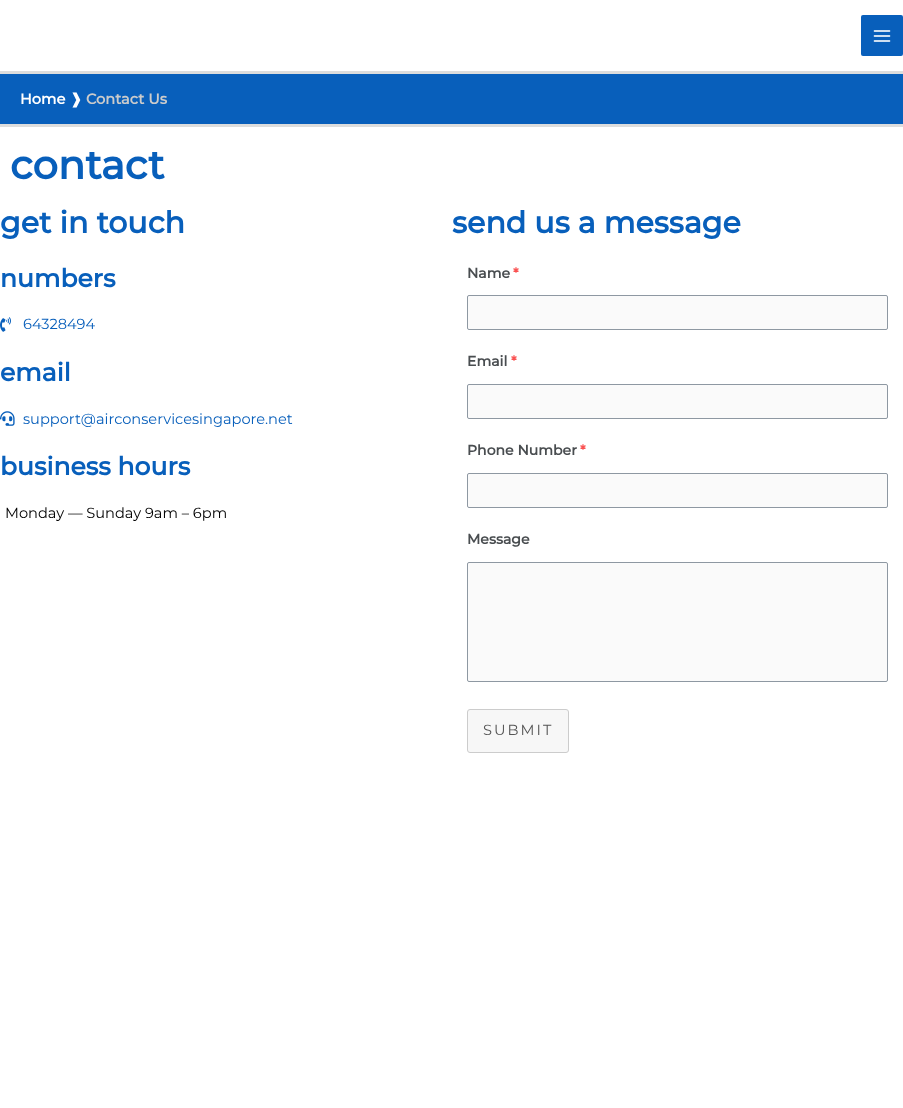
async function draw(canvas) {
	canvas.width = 903;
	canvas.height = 1108;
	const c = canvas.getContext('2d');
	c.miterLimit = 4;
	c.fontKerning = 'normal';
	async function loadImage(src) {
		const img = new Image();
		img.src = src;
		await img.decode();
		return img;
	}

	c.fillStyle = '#fff';
	c.fillRect(0, 0, 903, 1108);
	c.fillStyle = '#ddd';
	c.fillRect(0, 71, 903, 3);
	c.fillStyle = '#085fbb';
	c.beginPath();
	c.roundRect(861, 15, 42, 41, 2);
	c.fill();
	c.drawImage(await loadImage('img1.png'), 873, 30, 18, 12);
	c.fillRect(0, 74, 903, 50);
	c.fillStyle = '#ddd';
	c.fillRect(0, 124, 903, 3);
	c.font = 'bold 14.6px Montserrat';
	c.fillStyle = '#fff';
	c.fillText('Home', 20, 104);
	c.font = 'bold 14.6px DejaVu Sans';
	c.fillText('❱', 70, 104);
	c.font = 'bold 14.6px Montserrat';
	c.fillStyle = '#cbcbcb';
	c.fillText('Contact Us', 86, 104);
	c.font = 'bold 40px Montserrat';
	c.fillStyle = '#085fbb';
	c.fillText('contact', 10, 179);
	c.font = 'bold 30px Montserrat';
	c.fillText('get in touch', 0, 233);
	c.font = 'bold 25px Montserrat';
	c.fillText('numbers', 0, 287);
	c.drawImage(await loadImage('img2.png'), 0, 317, 11, 15);
	c.font = '14.6px Montserrat';
	c.fillText('64328494', 23, 329);
	c.font = 'bold 25px Montserrat';
	c.fillText('email', 0, 381);
	c.drawImage(await loadImage('img3.png'), 0, 411, 15, 15);
	c.font = '14.6px Montserrat';
	c.fillText('support@airconservicesingapore.net', 23, 424);
	c.font = 'bold 25px Montserrat';
	c.fillText('business hours', 0, 475);
	c.font = '14.6px Montserrat';
	c.fillStyle = '#000';
	c.fillText('Monday — Sunday 9am – 6pm', 5, 518);
	c.font = 'bold 30px Montserrat';
	c.fillStyle = '#085fbb';
	c.fillText('send us a message', 452, 233);
	c.font = 'bold 14px Montserrat';
	c.fillStyle = '#494d50';
	c.fillText('Name', 467, 278);
	c.fillStyle = '#fa5252';
	c.fillText('*', 513, 278);
	c.fillStyle = '#fafafa';
	c.beginPath();
	c.roundRect(467.5, 295.5, 420, 34, 1.5);
	c.fill();
	c.strokeStyle = '#8e98a2';
	c.stroke();
	c.fillStyle = '#494d50';
	c.fillText('Email', 467, 366);
	c.fillStyle = '#fa5252';
	c.fillText('*', 511, 366);
	c.fillStyle = '#fafafa';
	c.beginPath();
	c.roundRect(467.5, 384.5, 420, 34, 1.5);
	c.fill();
	c.stroke();
	c.fillStyle = '#494d50';
	c.fillText('Phone Number', 467, 455);
	c.fillStyle = '#fa5252';
	c.fillText('*', 580, 455);
	c.fillStyle = '#fafafa';
	c.beginPath();
	c.roundRect(467.5, 473.5, 420, 34, 1.5);
	c.fill();
	c.stroke();
	c.fillStyle = '#494d50';
	c.fillText('Message', 467, 544);
	c.fillStyle = '#fafafa';
	c.beginPath();
	c.roundRect(467.5, 562.5, 420, 119, 1.5);
	c.fill();
	c.stroke();
	c.fillStyle = '#f7f7f7';
	c.beginPath();
	c.roundRect(467.5, 709.5, 101, 43, 2.5);
	c.fill();
	c.strokeStyle = '#ccc';
	c.stroke();
	c.letterSpacing = '2px';
	c.font = '14.6px Montserrat';
	c.fillStyle = '#555';
	c.fillText('SUBMIT', 483, 735);
}

draw(document.querySelector('canvas'));
